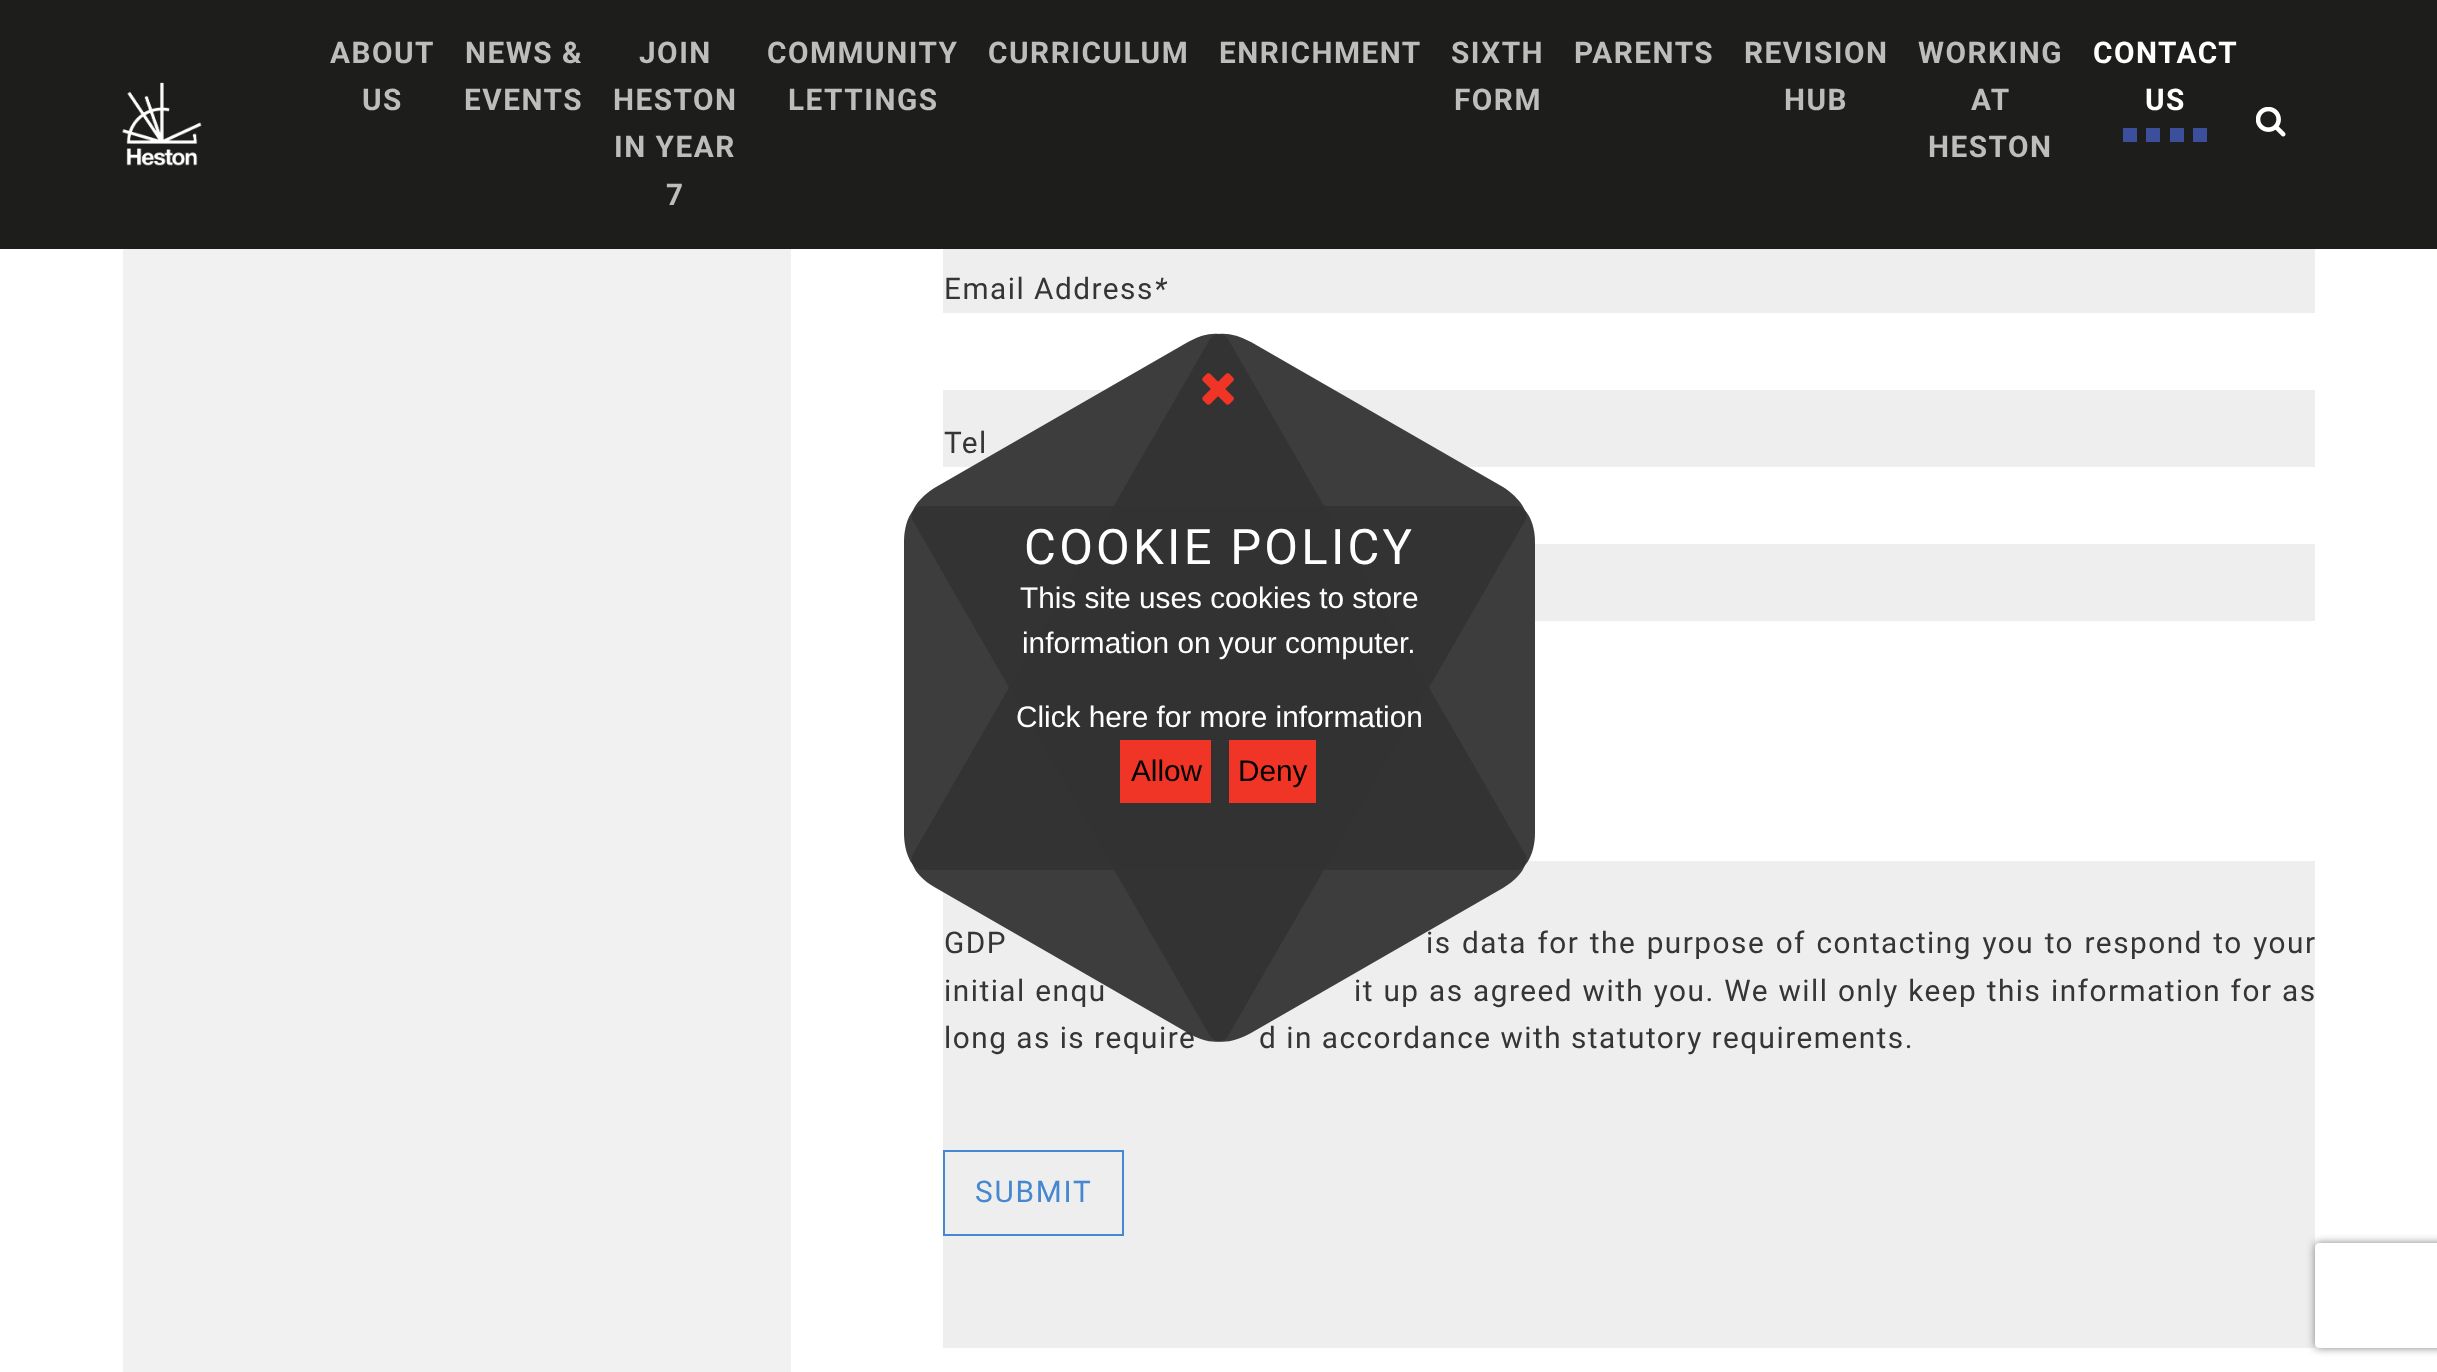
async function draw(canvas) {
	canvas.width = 2437;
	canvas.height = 1372;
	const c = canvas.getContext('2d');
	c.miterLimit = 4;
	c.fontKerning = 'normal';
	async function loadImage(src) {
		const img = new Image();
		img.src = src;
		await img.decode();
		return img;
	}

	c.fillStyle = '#fff';
	c.fillRect(0, 0, 2437, 1372);
	c.fillStyle = '#1d1d1b';
	c.fillRect(0, 0, 2437, 249);
	c.drawImage(await loadImage('img1.png'), 122, 82, 80, 84);
	c.letterSpacing = '1.5px';
	c.font = 'bold 29.75px Roboto';
	c.fillStyle = '#bdbdbd';
	for (const [text, x, y] of [
		['ABOUT', 330, 63],
		['US', 362, 110],
		['NEWS &', 465, 63],
		['EVENTS', 464, 110],
		['JOIN', 639, 63],
		['HESTON', 613, 110],
		['IN YEAR', 614, 157],
		['7', 666, 205],
		['COMMUNITY', 767, 63],
		['LETTINGS', 788, 110],
		['CURRICULUM', 988, 63],
		['ENRICHMENT', 1219, 63],
		['SIXTH', 1451, 63],
		['FORM', 1454, 110],
		['PARENTS', 1574, 63],
		['REVISION', 1744, 63],
		['HUB', 1784, 110],
		['WORKING', 1918, 63],
		['AT', 1971, 110],
		['HESTON', 1928, 157],
	]) {
		c.fillText(text, x, y);
	}
	c.fillStyle = '#fff';
	c.fillText('CONTACT', 2093, 63);
	c.fillText('US', 2145, 110);
	for (const [x, y, w, h, color] of [
		[2170, 128, 14, 14, '#3c4f9d'],
		[2123, 128, 14, 14, '#3c4f9d'],
		[2146, 128, 14, 14, '#3c4f9d'],
		[2193, 128, 14, 14, '#3c4f9d'],
	]) {
		c.fillStyle = color;
		c.fillRect(x, y, w, h);
	}
	c.drawImage(await loadImage('img2.png'), 2256, 107, 30, 30);
	c.fillStyle = '#f1f1f1';
	c.fillRect(123, 249, 668, 1123);
	c.fillStyle = '#eee';
	c.fillRect(943, 249, 1372, 1099);
	c.font = '29.75px Roboto';
	c.fillStyle = '#353535';
	c.fillText('Email Address', 944, 299);
	c.font = 'italic 29.75px Roboto';
	c.fillText('*', 1154, 299);
	c.fillStyle = '#fff';
	c.fillRect(943, 313, 1372, 77);
	c.font = '29.75px Roboto';
	c.fillStyle = '#353535';
	c.fillText('Tel', 944, 453);
	c.fillStyle = '#fff';
	c.fillRect(943, 467, 1372, 77);
	c.fillRect(943, 621, 1372, 240);
	c.wordSpacing = '1.6px';
	c.fillStyle = '#353535';
	c.fillText('GDP', 944, 953);
	c.fillText('is data for the purpose of contacting you to respond to your', 1426, 953);
	c.wordSpacing = '0.6px';
	c.fillText('initial enqu', 944, 1001);
	c.fillText('it up as agreed with you. We will only keep this information for as', 1354, 1001);
	c.wordSpacing = '0px';
	c.fillText('long as is require', 944, 1048);
	c.fillText('d in accordance with statutory requirements.', 1259, 1048);
	c.strokeStyle = '#4587d0';
	c.lineWidth = 2;
	c.strokeRect(944, 1151, 179, 84);
	c.letterSpacing = '1.75px';
	c.fillStyle = '#4587d0';
	c.fillText('SUBMIT', 975, 1202);
	c.fillStyle = '#333333f2';
	c.beginPath();
	c.moveTo(1535, 542);
	c.lineTo(1535, 833);
	c.bezierCurveTo(1535, 853, 1526, 870, 1516, 870);
	c.lineTo(922, 870);
	c.bezierCurveTo(912, 870, 904, 853, 904, 833);
	c.lineTo(904, 542);
	c.bezierCurveTo(904, 522, 912, 506, 922, 506);
	c.lineTo(1516, 506);
	c.bezierCurveTo(1526, 506, 1535, 522, 1535, 542);
	c.closePath();
	c.fill();
	c.beginPath();
	c.moveTo(1503, 888);
	c.lineTo(1251, 1033);
	c.bezierCurveTo(1233, 1043, 1215, 1045, 1210, 1036);
	c.lineTo(913, 521);
	c.bezierCurveTo(908, 513, 918, 498, 936, 487);
	c.lineTo(1188, 342);
	c.bezierCurveTo(1205, 332, 1223, 331, 1228, 339);
	c.lineTo(1525, 854);
	c.bezierCurveTo(1530, 863, 1520, 878, 1503, 888);
	c.closePath();
	c.fill();
	c.beginPath();
	c.moveTo(1251, 342);
	c.lineTo(1503, 487);
	c.bezierCurveTo(1520, 498, 1530, 513, 1525, 521);
	c.lineTo(1228, 1036);
	c.bezierCurveTo(1223, 1045, 1205, 1043, 1188, 1033);
	c.lineTo(936, 888);
	c.bezierCurveTo(918, 878, 908, 863, 913, 854);
	c.lineTo(1210, 339);
	c.bezierCurveTo(1215, 331, 1233, 332, 1251, 342);
	c.closePath();
	c.fill();
	c.drawImage(await loadImage('img3.png'), 1202, 373, 32, 32);
	c.letterSpacing = '3.25px';
	c.font = '49px Roboto';
	c.fillStyle = '#fff';
	c.fillText('COOKIE POLICY', 1024, 564);
	c.letterSpacing = '0px';
	c.font = '29.75px Liberation Sans';
	for (const [text, x, y] of [
		['This site uses cookies to store', 1020, 608],
		['information on your computer.', 1022, 653],
		['Click here for more information', 1016, 727],
	]) {
		c.fillText(text, x, y);
	}
	c.fillStyle = '#f03426';
	c.fillRect(1120, 740, 91, 63);
	c.fillStyle = '#000';
	c.fillText('Allow', 1131, 781);
	c.fillStyle = '#f03426';
	c.fillRect(1229, 740, 87, 63);
	c.fillStyle = '#000';
	c.fillText('Deny', 1238, 781);
	c.save();
	c.beginPath();
	c.moveTo(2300, 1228);
	c.lineTo(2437, 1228);
	c.lineTo(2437, 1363);
	c.lineTo(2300, 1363);
	c.closePath();
	c.moveTo(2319, 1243);
	c.lineTo(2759, 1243);
	c.bezierCurveTo(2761, 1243, 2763, 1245, 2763, 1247);
	c.lineTo(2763, 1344);
	c.bezierCurveTo(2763, 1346, 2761, 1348, 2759, 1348);
	c.lineTo(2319, 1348);
	c.bezierCurveTo(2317, 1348, 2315, 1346, 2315, 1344);
	c.lineTo(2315, 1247);
	c.bezierCurveTo(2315, 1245, 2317, 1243, 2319, 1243);
	c.closePath();
	c.clip('evenodd');
	c.fillStyle = '#808080';
	c.filter = 'blur(4.5px)';
	c.beginPath();
	c.roundRect(2315, 1243, 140, 105, 4);
	c.fill();
	c.filter = 'none';
	c.restore();
}

draw(document.querySelector('canvas'));
